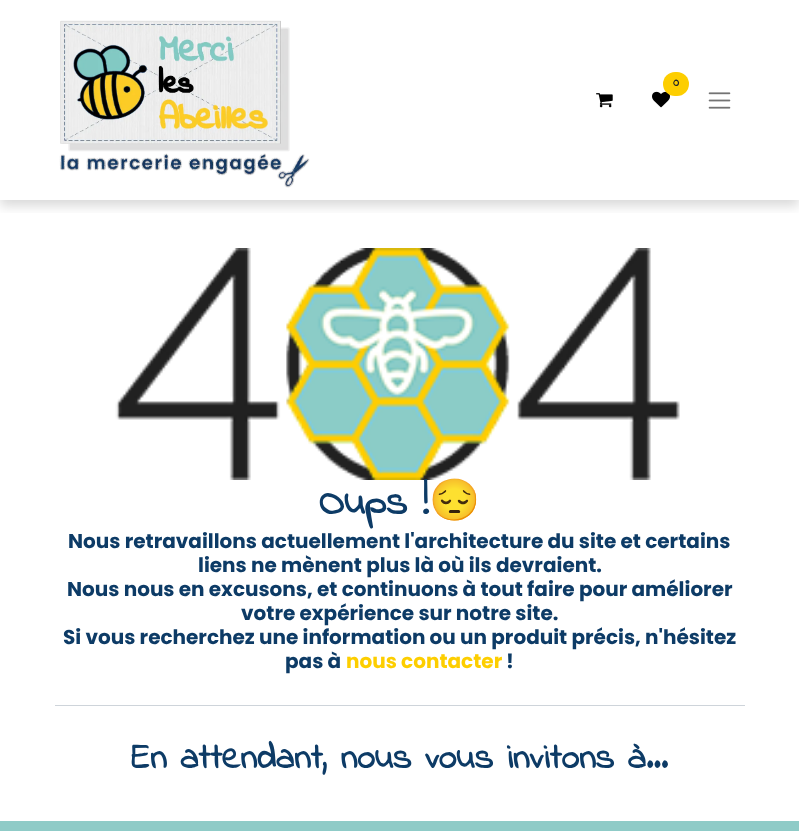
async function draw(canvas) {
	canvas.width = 799;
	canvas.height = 831;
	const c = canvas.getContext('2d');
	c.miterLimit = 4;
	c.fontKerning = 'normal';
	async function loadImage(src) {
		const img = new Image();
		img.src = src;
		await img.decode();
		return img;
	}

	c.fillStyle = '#fff';
	c.fillRect(0, 0, 799, 831);
	c.save();
	c.beginPath();
	c.rect(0, 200, 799, 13);
	c.clip();
	c.fillStyle = '#00000026';
	c.filter = 'blur(6px)';
	c.beginPath();
	c.rect(0, 6, 799, 200);
	c.fill();
	c.filter = 'none';
	c.restore();
	c.drawImage(await loadImage('img1.png'), 59, 20, 251, 168);
	c.drawImage(await loadImage('img2.png'), 652, 91, 18, 17);
	c.fillStyle = '#fdce00';
	c.beginPath();
	c.roundRect(663, 72, 26, 24, 12);
	c.fill();
	c.font = 'bold 14px Indie Flower';
	c.fillStyle = '#212529';
	c.fillText('0', 673, 86);
	c.drawImage(await loadImage('img3.png'), 596, 93, 17, 15);
	c.drawImage(await loadImage('img4.png'), 708, 92, 23, 17);
	c.drawImage(await loadImage('img5.png'), 115, 248, 565, 232);
	c.font = 'bold 41px Indie Flower';
	c.fillStyle = '#0d3b66';
	c.fillText('Oups !', 319, 514);
	c.font = 'bold 41px Noto Color Emoji';
	c.fillText('😔', 429, 514);
	c.font = 'bold 20px Poppins';
	for (const [text, x, y] of [
		['Nous retravaillons actuellement l\'architecture du site et certains', 68, 548],
		['liens ne mènent plus là où ils devraient.', 198, 572],
		['Nous nous en excusons, et continuons à tout faire pour améliorer', 67, 596],
		['votre expérience sur notre site.', 241, 620],
		['Si vous recherchez une information ou un produit précis, n\'hésitez', 63, 644],
		['pas à', 285, 668],
	]) {
		c.fillText(text, x, y);
	}
	c.fillStyle = '#fdce00';
	c.fillText('nous contacter', 346, 668);
	c.fillStyle = '#0d3b66';
	c.fillText('!', 506, 668);
	c.fillStyle = '#ced4da';
	c.fillRect(55, 705, 690, 1);
	c.font = 'bold 36px Indie Flower';
	c.fillStyle = '#0d3b66';
	c.fillText('En attendant, nous vous invitons à...', 131, 768);
	c.fillStyle = '#8fcbc7';
	c.fillRect(0, 821, 799, 10);
}

draw(document.querySelector('canvas'));
